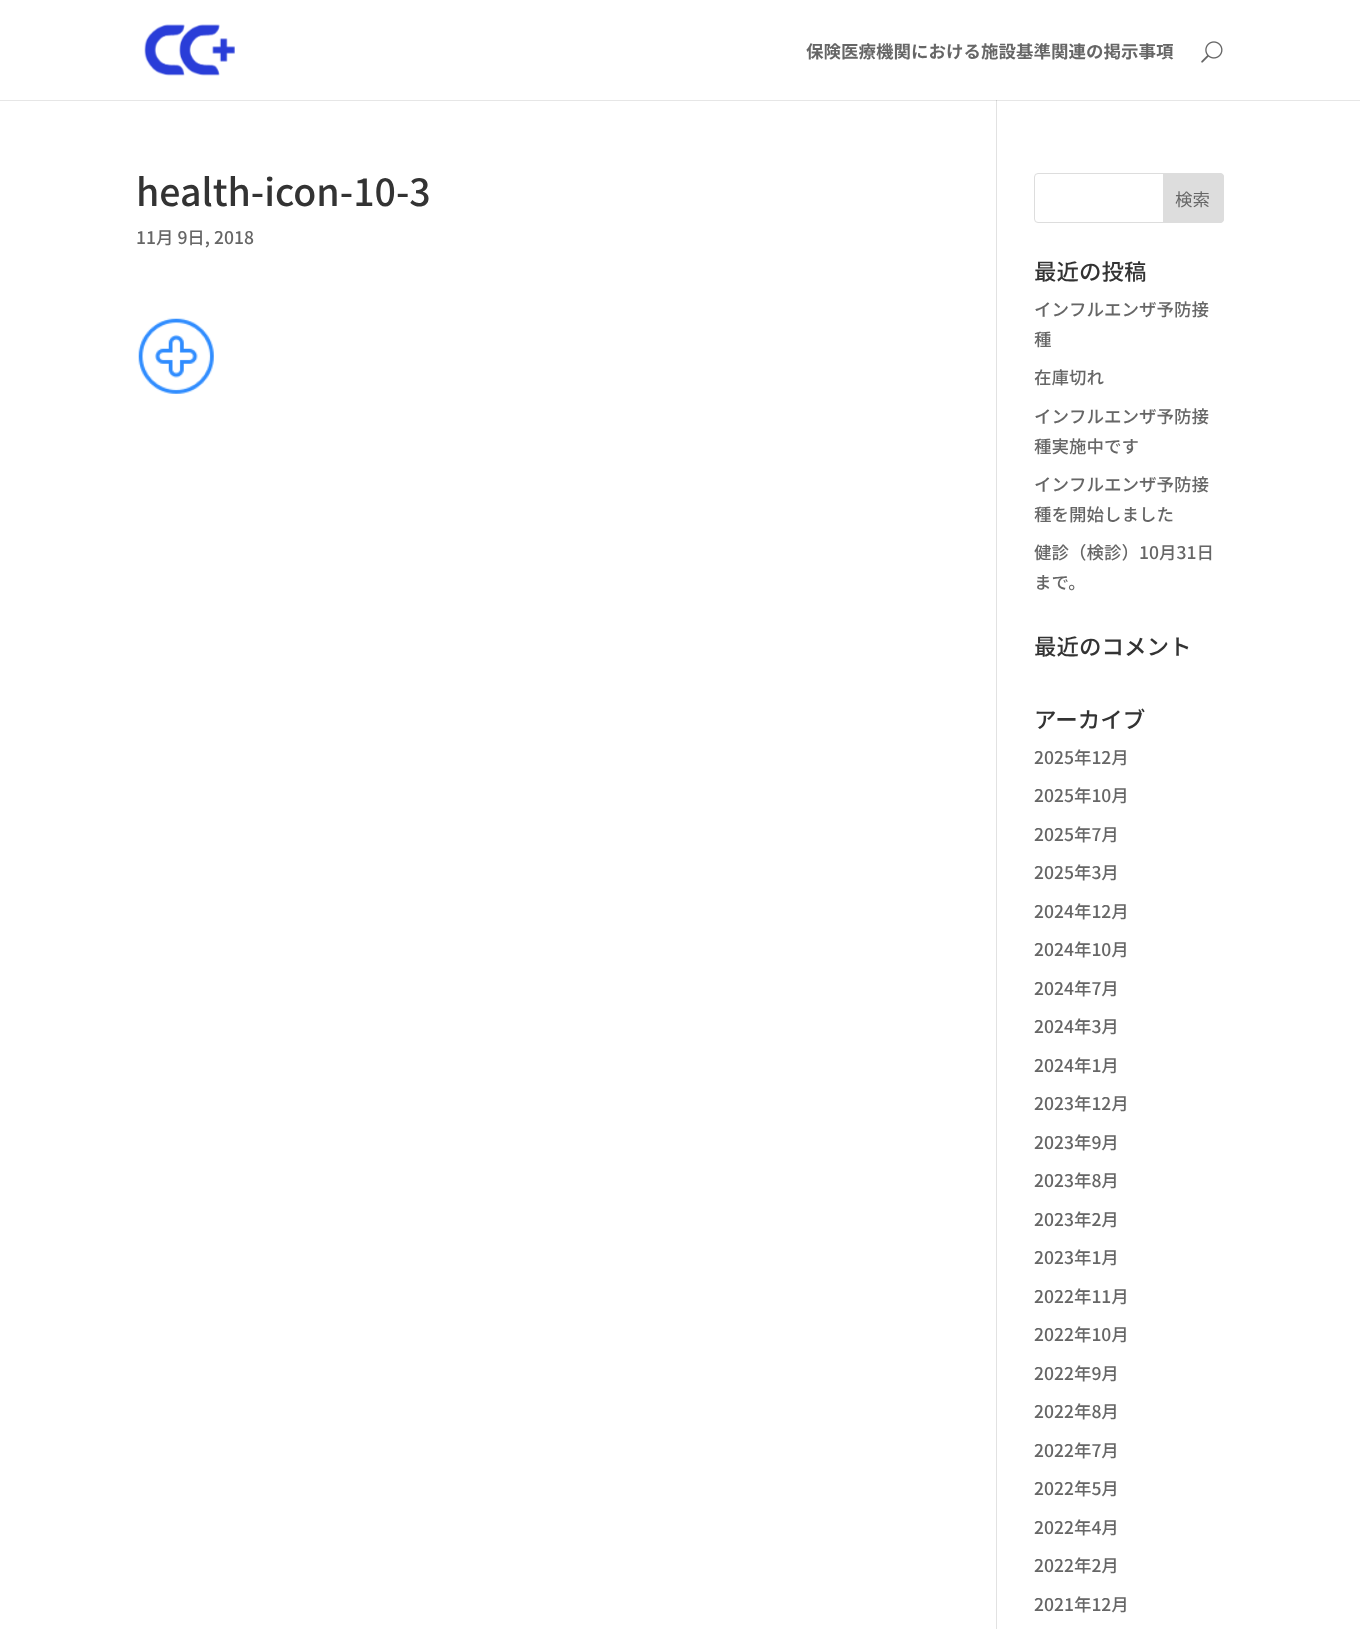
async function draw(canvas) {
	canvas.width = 1360;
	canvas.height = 1629;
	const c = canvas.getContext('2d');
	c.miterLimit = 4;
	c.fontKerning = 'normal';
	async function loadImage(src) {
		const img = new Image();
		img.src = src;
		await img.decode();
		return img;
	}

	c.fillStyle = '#fff';
	c.fillRect(0, 0, 1360, 1629);
	c.fillStyle = '#e6e6e6';
	c.fillRect(0, 100, 1360, 1);
	c.drawImage(await loadImage('img1.png'), 144, 24, 91, 52);
	c.font = 'bold 17.5px Noto Sans JP';
	c.fillStyle = '#666';
	c.fillText('保険医療機関における施設基準関連の掲示事項', 806, 58);
	c.drawImage(await loadImage('img2.png'), 1201, 41, 22, 22);
	c.fillStyle = '#e2e2e2';
	c.fillRect(996, 100, 1, 1529);
	c.fillStyle = '#cbcbcb';
	c.fillRect(996, 100, 1, 1);
	c.font = '500 37.5px Noto Sans JP';
	c.fillStyle = '#333';
	c.fillText('health-icon-10-3', 136, 206);
	c.font = '500 17.5px Noto Sans JP';
	c.fillStyle = '#666';
	c.fillText('11月 9日, 2018', 136, 244);
	c.drawImage(await loadImage('img3.png'), 138, 318, 76, 76);
	c.beginPath();
	c.roundRect(1034.5, 173.5, 189, 49, 3.5);
	c.strokeStyle = '#ddd';
	c.stroke();
	c.fillStyle = '#ddd';
	c.beginPath();
	c.roundRect(1163.5, 173.5, 60, 49, [0, 3.5, 3.5, 0]);
	c.fill();
	c.stroke();
	c.font = '17.5px Noto Sans JP';
	c.fillStyle = '#666';
	c.fillText('検索', 1175, 206);
	c.font = '500 22.5px Noto Sans JP';
	c.fillStyle = '#333';
	c.fillText('最近の投稿', 1034, 280);
	c.font = '500 17.5px Noto Sans JP';
	c.fillStyle = '#666';
	for (const [text, x, y] of [
		['インフルエンザ予防接', 1034, 316],
		['種', 1034, 346],
		['在庫切れ', 1034, 384],
		['インフルエンザ予防接', 1034, 423],
		['種実施中です', 1034, 453],
		['インフルエンザ予防接', 1034, 491],
		['種を開始しました', 1034, 521],
		['健診（検診）10月31日', 1034, 559],
		['まで。', 1034, 589],
	]) {
		c.fillText(text, x, y);
	}
	c.font = '500 22.5px Noto Sans JP';
	c.fillStyle = '#333';
	c.fillText('最近のコメント', 1034, 655);
	c.fillText('アーカイブ', 1034, 728);
	c.font = '500 17.5px Noto Sans JP';
	c.fillStyle = '#666';
	for (const [text, x, y] of [
		['2025年12月', 1034, 764],
		['2025年10月', 1034, 802],
		['2025年7月', 1034, 841],
		['2025年3月', 1034, 879],
		['2024年12月', 1034, 918],
		['2024年10月', 1034, 956],
		['2024年7月', 1034, 995],
		['2024年3月', 1034, 1033],
		['2024年1月', 1034, 1072],
		['2023年12月', 1034, 1110],
		['2023年9月', 1034, 1149],
		['2023年8月', 1034, 1187],
		['2023年2月', 1034, 1226],
		['2023年1月', 1034, 1264],
		['2022年11月', 1034, 1303],
		['2022年10月', 1034, 1341],
		['2022年9月', 1034, 1380],
		['2022年8月', 1034, 1418],
		['2022年7月', 1034, 1457],
		['2022年5月', 1034, 1495],
		['2022年4月', 1034, 1534],
		['2022年2月', 1034, 1572],
		['2021年12月', 1034, 1611],
	]) {
		c.fillText(text, x, y);
	}
}

draw(document.querySelector('canvas'));
